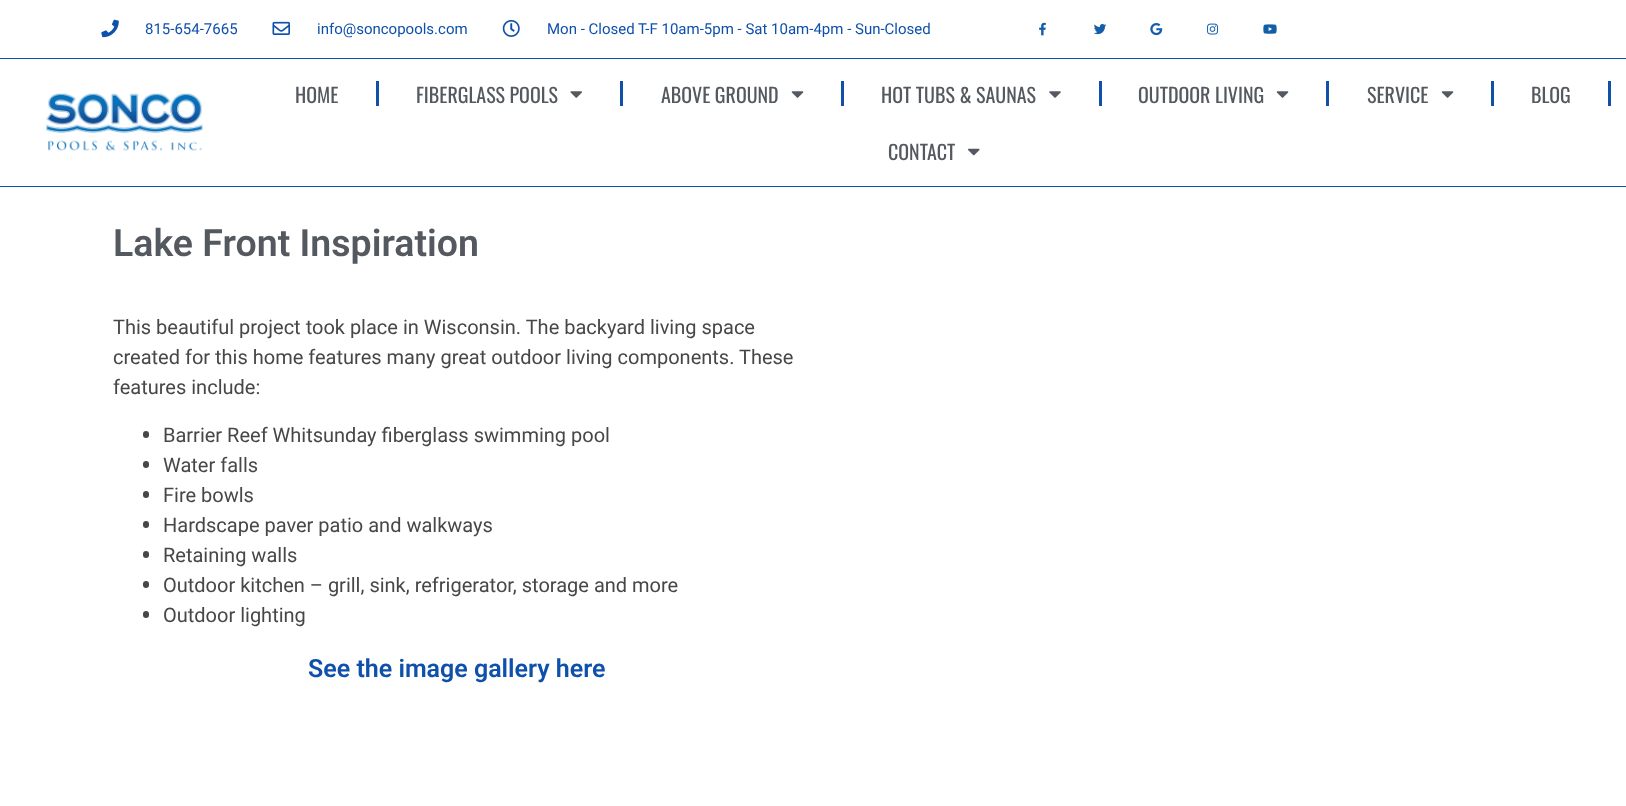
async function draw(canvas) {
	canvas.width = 1626;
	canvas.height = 806;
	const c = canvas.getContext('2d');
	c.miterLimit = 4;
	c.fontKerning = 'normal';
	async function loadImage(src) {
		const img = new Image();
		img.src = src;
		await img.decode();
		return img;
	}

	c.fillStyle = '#fff';
	c.fillRect(0, 0, 1626, 806);
	c.fillStyle = '#0f50ab';
	c.fillRect(0, 58, 1626, 1);
	c.drawImage(await loadImage('img1.png'), 101, 19, 18, 19);
	c.font = '15px Roboto';
	c.fillText('815-654-7665', 145, 34);
	c.drawImage(await loadImage('img2.png'), 272, 21, 18, 14);
	c.fillText('info@soncopools.com', 317, 34);
	c.drawImage(await loadImage('img3.png'), 502, 20, 18, 17);
	c.fillText('Mon - Closed T-F 10am-5pm - Sat 10am-4pm - Sun-Closed', 547, 34);
	c.drawImage(await loadImage('img4.png'), 1039, 22, 7, 14);
	c.drawImage(await loadImage('img5.png'), 1094, 24, 13, 11);
	c.drawImage(await loadImage('img6.png'), 1150, 23, 13, 13);
	c.drawImage(await loadImage('img7.png'), 1207, 23, 11, 12);
	c.drawImage(await loadImage('img8.png'), 1263, 24, 14, 10);
	c.fillRect(0, 186, 1626, 1);
	c.drawImage(await loadImage('img9.png'), 46, 93, 157, 58);
	c.font = '20px Oswald';
	c.fillStyle = '#54595f';
	c.fillText('HOME', 295, 103);
	c.fillStyle = '#0f50ab';
	c.fillRect(376, 81, 3, 25);
	c.fillStyle = '#54595f';
	c.fillText('FIBERGLASS POOLS', 416, 103);
	c.drawImage(await loadImage('img10.png'), 570, 91, 12, 7);
	c.fillStyle = '#0f50ab';
	c.fillRect(620, 81, 3, 25);
	c.fillStyle = '#54595f';
	c.fillText('ABOVE GROUND', 661, 103);
	c.drawImage(await loadImage('img11.png'), 791, 91, 13, 7);
	c.fillStyle = '#0f50ab';
	c.fillRect(841, 81, 3, 25);
	c.fillStyle = '#54595f';
	c.fillText('HOT TUBS & SAUNAS', 881, 103);
	c.drawImage(await loadImage('img12.png'), 1049, 91, 12, 7);
	c.fillStyle = '#0f50ab';
	c.fillRect(1099, 81, 3, 25);
	c.fillStyle = '#54595f';
	c.fillText('OUTDOOR LIVING', 1138, 103);
	c.drawImage(await loadImage('img11.png'), 1276, 91, 13, 7);
	c.fillStyle = '#0f50ab';
	c.fillRect(1326, 81, 3, 25);
	c.fillStyle = '#54595f';
	c.fillText('SERVICE', 1367, 103);
	c.drawImage(await loadImage('img11.png'), 1441, 91, 13, 7);
	c.fillStyle = '#0f50ab';
	c.fillRect(1491, 81, 3, 25);
	c.fillStyle = '#54595f';
	c.fillText('BLOG', 1531, 103);
	c.fillStyle = '#0f50ab';
	c.fillRect(1608, 81, 3, 25);
	c.fillStyle = '#54595f';
	c.fillText('CONTACT', 888, 160);
	c.drawImage(await loadImage('img13.png'), 968, 148, 12, 8);
	c.font = '600 37.5px Roboto';
	c.fillText('Lake Front Inspiration', 113, 256);
	c.font = '20px Roboto';
	c.fillStyle = '#474747';
	for (const [text, x, y] of [
		['This beautiful project took place in Wisconsin. The backyard living space', 113, 334],
		['created for this home features many great outdoor living components. These', 113, 364],
		['features include:', 113, 394],
	]) {
		c.fillText(text, x, y);
	}
	c.beginPath();
	c.roundRect(143, 431, 6, 7, 3);
	c.fill();
	c.fillText('Barrier Reef Whitsunday fiberglass swimming pool', 163, 442);
	c.beginPath();
	c.roundRect(143, 461, 6, 7, 3);
	c.fill();
	c.fillText('Water falls', 163, 472);
	c.beginPath();
	c.roundRect(143, 491, 6, 7, 3);
	c.fill();
	c.fillText('Fire bowls', 163, 502);
	c.beginPath();
	c.roundRect(143, 521, 6, 7, 3);
	c.fill();
	c.fillText('Hardscape paver patio and walkways', 163, 532);
	c.beginPath();
	c.roundRect(143, 551, 6, 7, 3);
	c.fill();
	c.fillText('Retaining walls', 163, 562);
	c.beginPath();
	c.roundRect(143, 581, 6, 7, 3);
	c.fill();
	c.fillText('Outdoor kitchen – grill, sink, refrigerator, storage and more', 163, 592);
	c.beginPath();
	c.roundRect(143, 611, 6, 7, 3);
	c.fill();
	c.fillText('Outdoor lighting', 163, 622);
	c.font = '600 25px Roboto';
	c.fillStyle = '#0f50ab';
	c.fillText('See the image gallery here', 308, 677);
}

draw(document.querySelector('canvas'));
